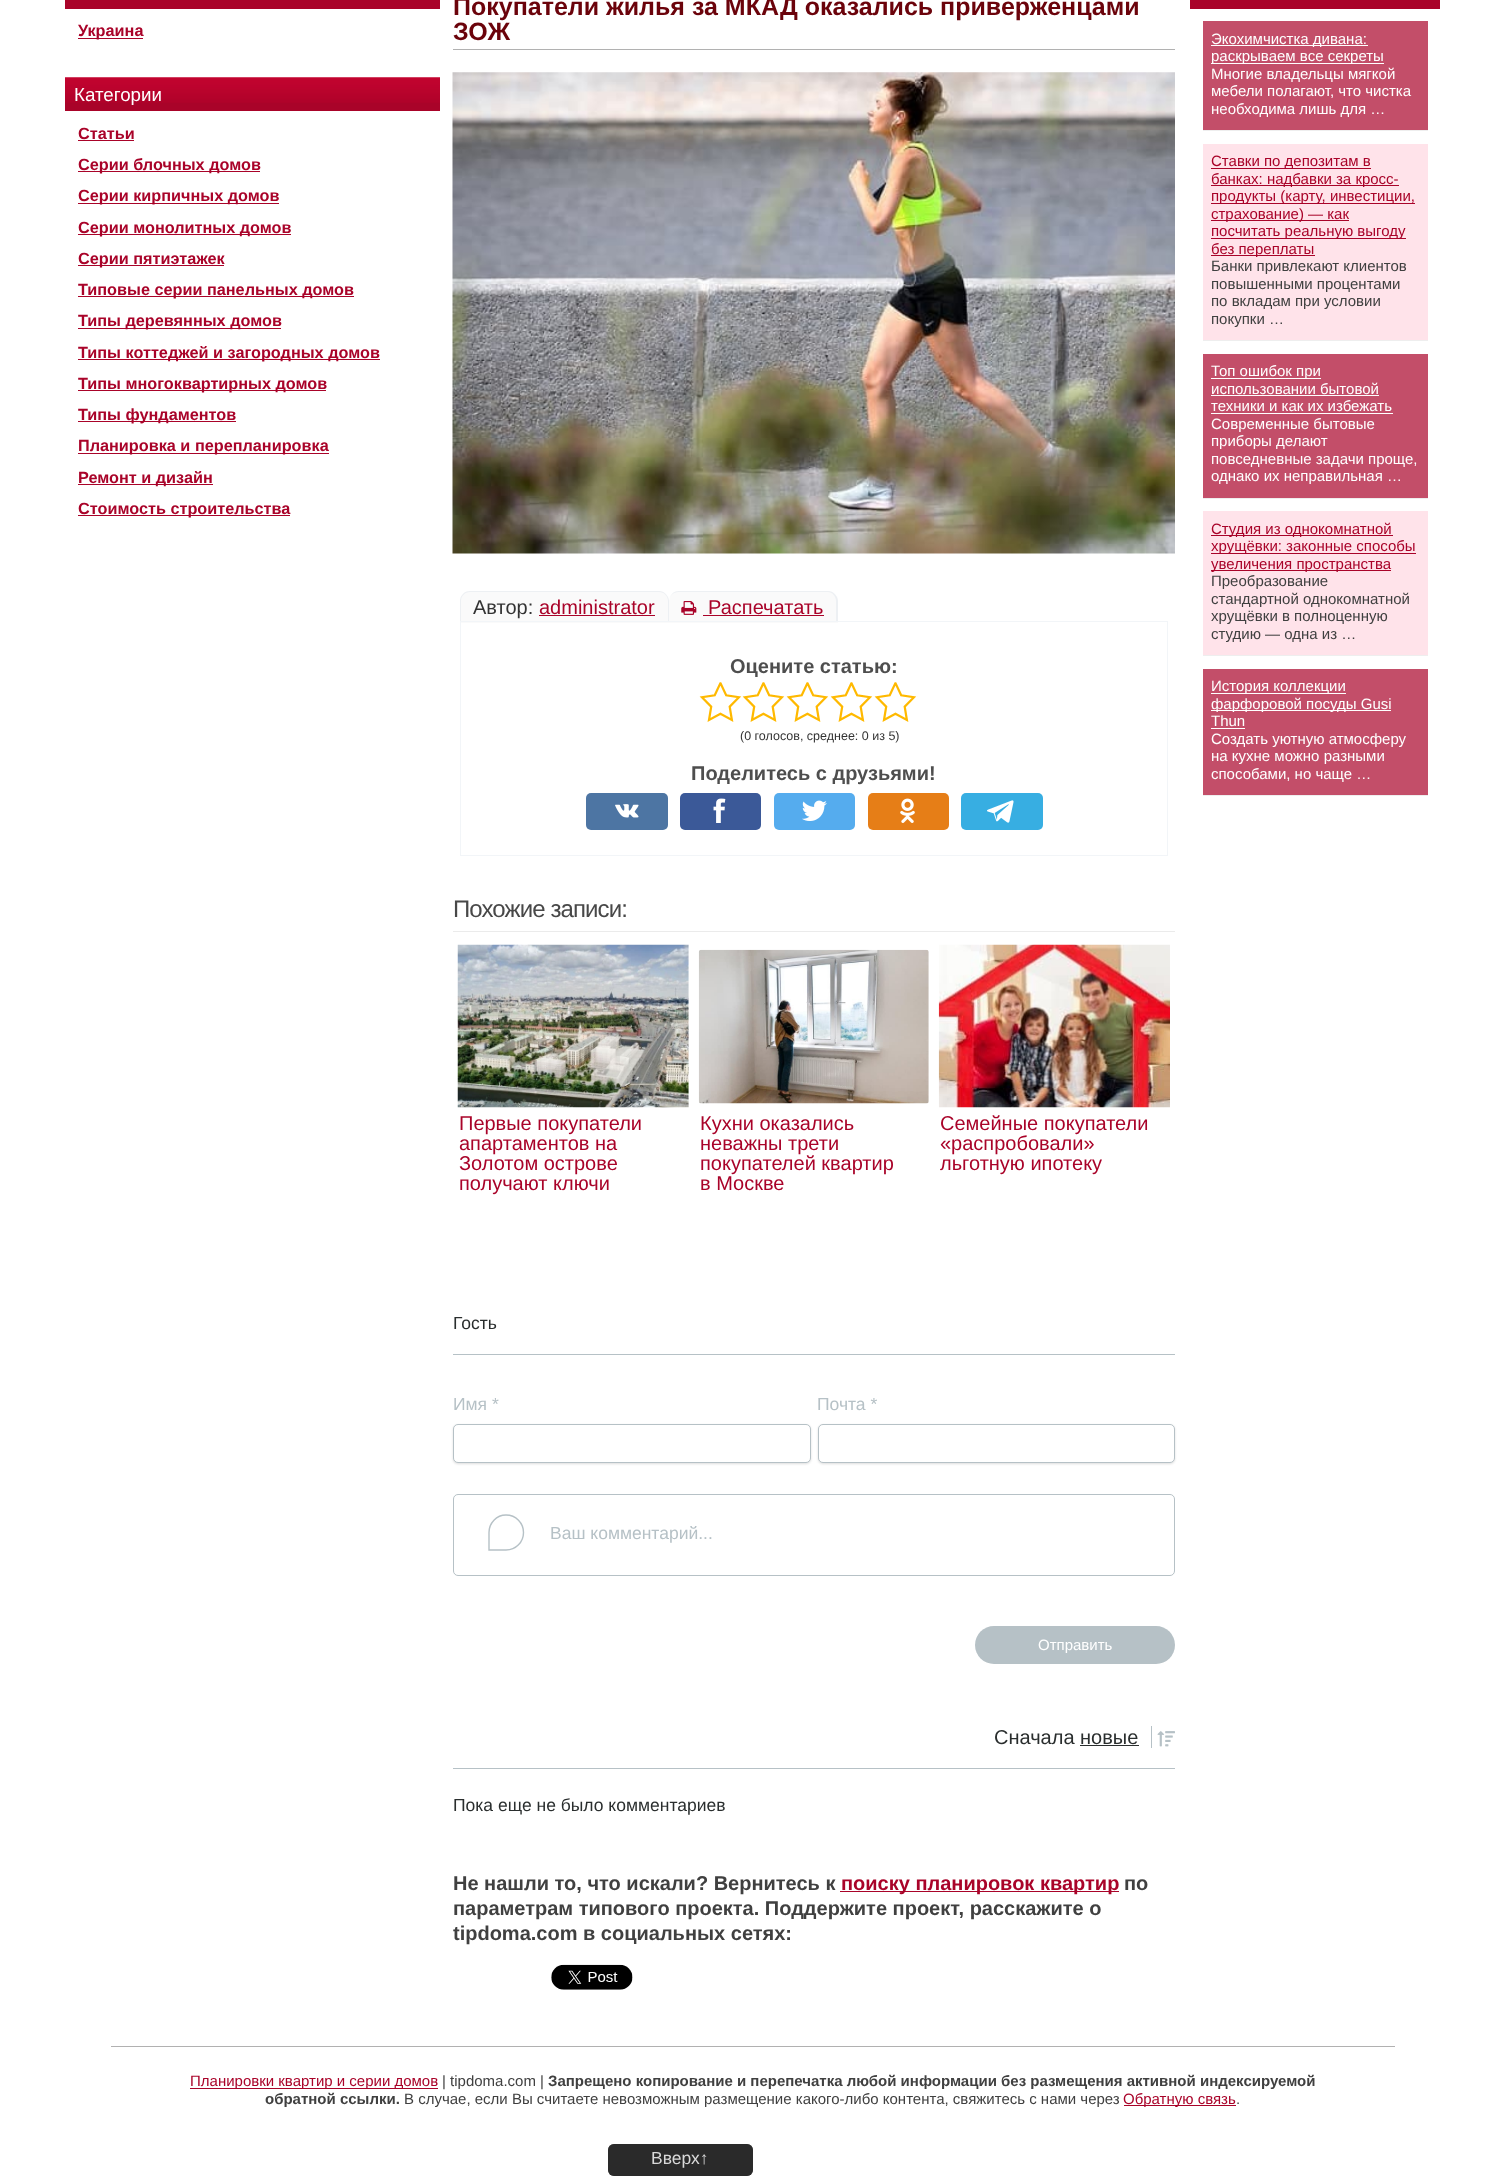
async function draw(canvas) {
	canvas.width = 1504;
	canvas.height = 2181;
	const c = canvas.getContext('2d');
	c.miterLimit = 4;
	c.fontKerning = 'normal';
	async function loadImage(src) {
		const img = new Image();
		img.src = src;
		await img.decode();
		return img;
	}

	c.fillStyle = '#fff';
	c.fillRect(0, 0, 1504, 2181);
	c.fillStyle = '#a90329';
	c.fillRect(65, 0, 375, 9);
	c.fillRect(78, 38, 65, 1);
	c.font = 'bold 16.25px Liberation Sans';
	c.fillText('Украина', 78, 36);
	c.fillRect(65, 103, 375, 8);
	c.drawImage(await loadImage('img1.png'), 65, 77, 375, 26);
	c.font = '18.75px Liberation Sans';
	c.fillStyle = '#fff';
	c.fillText('Категории', 74, 101);
	c.font = 'bold 16.25px Liberation Sans';
	c.fillStyle = '#a90329';
	c.fillText('Статьи', 78, 139);
	c.fillRect(78, 140, 56, 1);
	c.fillRect(78, 171, 182, 1);
	c.fillText('Серии блочных домов', 78, 170);
	c.fillRect(78, 203, 201, 1);
	c.fillText('Серии кирпичных домов', 78, 201);
	c.fillRect(78, 234, 213, 1);
	c.fillText('Серии монолитных домов', 78, 233);
	c.fillRect(78, 265, 146, 1);
	c.fillText('Серии пятиэтажек', 78, 264);
	c.fillRect(78, 296, 276, 1);
	c.fillText('Типовые серии панельных домов', 78, 295);
	c.fillRect(78, 328, 203, 1);
	c.fillText('Типы деревянных домов', 78, 326);
	c.fillRect(78, 359, 302, 1);
	c.fillText('Типы коттеджей и загородных домов', 78, 358);
	c.fillRect(78, 390, 248, 1);
	c.fillText('Типы многоквартирных домов', 78, 389);
	c.fillRect(78, 421, 158, 1);
	c.fillText('Типы фундаментов', 78, 420);
	c.fillRect(78, 453, 251, 1);
	c.fillText('Планировка и перепланировка', 78, 451);
	c.fillRect(78, 484, 135, 1);
	c.fillText('Ремонт и дизайн', 78, 483);
	c.fillRect(78, 515, 212, 1);
	c.fillText('Стоимость строительства', 78, 514);
	c.fillStyle = '#b1b1b1';
	c.fillRect(453, 49, 722, 1);
	c.font = 'bold 25px Liberation Sans';
	c.fillStyle = '#6b030b';
	c.fillText('Покупатели жилья за МКАД оказались приверженцами', 453, 15);
	c.fillText('ЗОЖ', 453, 40);
	c.drawImage(await loadImage('img2.png'), 452, 72, 723, 482);
	c.fillStyle = '#fafafa';
	c.beginPath();
	c.roundRect(460, 591, 209, 32, [10, 10, 0, 0]);
	c.fill();
	c.fillStyle = '#edf0f3';
	c.beginPath();
	c.moveTo(470, 591);
	c.lineTo(659, 591);
	c.bezierCurveTo(664, 591, 669, 596, 669, 601);
	c.lineTo(669, 622);
	c.lineTo(460, 622);
	c.lineTo(460, 601);
	c.bezierCurveTo(460, 596, 464, 591, 470, 591);
	c.closePath();
	c.moveTo(470, 592);
	c.lineTo(659, 592);
	c.bezierCurveTo(664, 592, 668, 596, 668, 601);
	c.lineTo(668, 622);
	c.lineTo(461, 622);
	c.lineTo(461, 601);
	c.bezierCurveTo(461, 596, 465, 592, 470, 592);
	c.closePath();
	c.fill('evenodd');
	c.font = '20px Liberation Sans';
	c.fillStyle = '#333';
	c.fillText('Автор:', 473, 614);
	c.fillStyle = '#a90329';
	c.fillText('administrator', 539, 614);
	c.fillRect(539, 615, 116, 1);
	c.fillStyle = '#fafafa';
	c.beginPath();
	c.roundRect(669, 591, 169, 32, [10, 10, 0, 0]);
	c.fill();
	c.fillStyle = '#edf0f3';
	c.beginPath();
	c.moveTo(679, 591);
	c.lineTo(828, 591);
	c.bezierCurveTo(833, 591, 838, 596, 838, 601);
	c.lineTo(838, 622);
	c.lineTo(669, 622);
	c.lineTo(669, 601);
	c.bezierCurveTo(669, 596, 673, 591, 679, 591);
	c.closePath();
	c.moveTo(679, 592);
	c.lineTo(828, 592);
	c.bezierCurveTo(832, 592, 836, 596, 836, 601);
	c.lineTo(836, 622);
	c.lineTo(669, 622);
	c.lineTo(669, 601);
	c.bezierCurveTo(669, 596, 673, 592, 679, 592);
	c.closePath();
	c.fill('evenodd');
	c.drawImage(await loadImage('img3.png'), 681, 601, 16, 14);
	c.fillStyle = '#a90329';
	c.fillText('Распечатать', 708, 614);
	c.fillRect(703, 615, 121, 1);
	c.strokeStyle = '#f2f5f8';
	c.strokeRect(460.5, 621.5, 707, 234);
	c.font = 'bold 20px Liberation Sans';
	c.fillStyle = '#4e4e4e';
	c.fillText('Оцените статью:', 730, 673);
	c.drawImage(await loadImage('img4.png'), 699, 682, 219, 40);
	c.font = '12.5px Liberation Sans';
	c.fillStyle = '#333';
	c.fillText('(0 голосов, среднее: 0 из 5)', 740, 740);
	c.font = 'bold 20px Liberation Sans';
	c.fillStyle = '#4e4e4e';
	c.fillText('Поделитесь с друзьями!', 691, 780);
	c.fillStyle = '#4d75a3';
	c.beginPath();
	c.roundRect(586, 793, 82, 37, 5);
	c.fill();
	c.drawImage(await loadImage('img5.png'), 615, 804, 24, 14);
	c.fillStyle = '#3b5998';
	c.beginPath();
	c.roundRect(680, 793, 81, 37, 5);
	c.fill();
	c.drawImage(await loadImage('img6.png'), 713, 798, 13, 25);
	c.fillStyle = '#55acee';
	c.beginPath();
	c.roundRect(774, 793, 81, 37, 5);
	c.fill();
	c.drawImage(await loadImage('img7.png'), 802, 800, 25, 21);
	c.fillStyle = '#e67e17';
	c.beginPath();
	c.roundRect(868, 793, 81, 37, 5);
	c.fill();
	c.drawImage(await loadImage('img8.png'), 900, 798, 15, 25);
	c.fillStyle = '#37aee2';
	c.beginPath();
	c.roundRect(961, 793, 82, 37, 5);
	c.fill();
	c.drawImage(await loadImage('img9.png'), 987, 800, 27, 23);
	c.letterSpacing = '-0.9px';
	c.font = '24px Liberation Sans';
	c.fillStyle = '#484848';
	c.fillText('Похожие записи:', 453, 917);
	c.fillStyle = '#ebebeb';
	c.fillRect(453, 931, 722, 1);
	c.drawImage(await loadImage('img10.png'), 457, 944, 232, 164);
	c.letterSpacing = '0px';
	c.font = '20px Liberation Sans';
	c.fillStyle = '#a90329';
	for (const [text, x, y] of [
		['Первые покупатели', 459, 1130],
		['апартаментов на', 459, 1150],
		['Золотом острове', 459, 1170],
		['получают ключи', 459, 1190],
	]) {
		c.fillText(text, x, y);
	}
	c.drawImage(await loadImage('img11.png'), 698, 949, 231, 155);
	for (const [text, x, y] of [
		['Кухни оказались', 700, 1130],
		['неважны трети', 700, 1150],
		['покупателей квартир', 700, 1170],
		['в Москве', 700, 1190],
	]) {
		c.fillText(text, x, y);
	}
	c.drawImage(await loadImage('img12.png'), 938, 944, 232, 164);
	for (const [text, x, y] of [
		['Семейные покупатели', 940, 1130],
		['«распробовали»', 940, 1150],
		['льготную ипотеку', 940, 1170],
	]) {
		c.fillText(text, x, y);
	}
	c.font = '17.5px Liberation Sans';
	c.fillStyle = '#2a2e2e';
	c.fillText('Гость', 453, 1329);
	c.fillStyle = '#b6c1c6';
	c.fillRect(453, 1354, 722, 1);
	c.fillText('Имя *', 453, 1410);
	c.fillStyle = '#ddd';
	c.filter = 'blur(1px)';
	c.beginPath();
	c.roundRect(453, 1425, 358, 39, 5);
	c.fill();
	c.filter = 'none';
	c.fillStyle = '#fff';
	c.beginPath();
	c.roundRect(453.5, 1424.5, 357, 38, 4.5);
	c.fill();
	c.strokeStyle = '#b6c1c6';
	c.stroke();
	c.fillStyle = '#b6c1c6';
	c.fillText('Почта *', 817, 1410);
	c.fillStyle = '#ddd';
	c.filter = 'blur(1px)';
	c.beginPath();
	c.roundRect(818, 1425, 357, 39, 5);
	c.fill();
	c.filter = 'none';
	c.fillStyle = '#fff';
	c.beginPath();
	c.roundRect(818.5, 1424.5, 356, 38, 4.5);
	c.fill();
	c.stroke();
	c.beginPath();
	c.roundRect(453.5, 1494.5, 721, 81, 4.5);
	c.stroke();
	c.beginPath();
	c.moveTo(489, 1532.5);
	c.bezierCurveTo(489, 1523, 496.5, 1515, 506, 1515);
	c.bezierCurveTo(516, 1515, 523.5, 1523, 523.5, 1532.5);
	c.bezierCurveTo(523.5, 1542, 516, 1550, 506, 1550);
	c.lineTo(489, 1550);
	c.closePath();
	c.lineWidth = 1.4;
	c.stroke();
	c.fillStyle = '#b6c1c6';
	c.fillText('Ваш комментарий...', 550, 1539);
	c.beginPath();
	c.roundRect(975, 1626, 200, 38, 19);
	c.fill();
	c.font = '15px Liberation Sans';
	c.fillStyle = '#fff';
	c.fillText('Отправить', 1038, 1650);
	c.fillStyle = '#b6c1c6';
	c.fillRect(453, 1768, 722, 1);
	c.font = '20px Liberation Sans';
	c.fillStyle = '#2a2e2e';
	c.fillText('Сначала новые', 994, 1744);
	c.fillStyle = '#b6c1c6';
	c.fillRect(1151, 1726, 1, 22);
	c.drawImage(await loadImage('img13.png'), 1157, 1731, 18, 16);
	c.fillStyle = '#2a2e2e';
	c.fillRect(1080, 1745, 59, 1);
	c.font = '17.5px Liberation Sans';
	c.fillText('Пока еще не было комментариев', 453, 1811);
	c.font = 'bold 20px Liberation Sans';
	c.fillStyle = '#404040';
	c.fillText('Не нашли то, что искали? Вернитесь к', 453, 1890);
	c.fillStyle = '#a90329';
	c.fillRect(840, 1891, 279, 1);
	c.fillText('поиску планировок квартир', 841, 1890);
	c.fillStyle = '#404040';
	for (const [text, x, y] of [
		['по', 1124, 1890],
		['параметрам типового проекта. Поддержите проект, расскажите о', 453, 1915],
		['tipdoma.com в социальных сетях:', 453, 1940],
	]) {
		c.fillText(text, x, y);
	}
	c.drawImage(await loadImage('img14.png'), 551, 1964, 82, 26);
	for (const [x, y, w, h, color] of [
		[1190, 0, 250, 9, '#a90329'],
		[1203, 21, 225, 109, '#c34e69'],
		[1203, 130, 225, 1, '#eee'],
		[1211, 45, 157, 1, '#fff'],
	]) {
		c.fillStyle = color;
		c.fillRect(x, y, w, h);
	}
	c.font = '15px Liberation Sans';
	c.fillText('Экохимчистка дивана:', 1211, 44);
	c.fillRect(1211, 63, 173, 1);
	for (const [text, x, y] of [
		['раскрываем все секреты', 1211, 61],
		['Многие владельцы мягкой', 1211, 79],
		['мебели полагают, что чистка', 1211, 96],
		['необходима лишь для …', 1211, 114],
	]) {
		c.fillText(text, x, y);
	}
	for (const [x, y, w, h, color] of [
		[1203, 144, 225, 196, '#ffe3ea'],
		[1203, 340, 225, 1, '#eee'],
		[1211, 168, 160, 1, '#a90329'],
	]) {
		c.fillStyle = color;
		c.fillRect(x, y, w, h);
	}
	c.fillText('Ставки по депозитам в', 1211, 166);
	c.fillRect(1211, 185, 188, 1);
	c.fillText('банках: надбавки за кросс-', 1211, 184);
	c.fillRect(1211, 203, 204, 1);
	c.fillText('продукты (карту, инвестиции,', 1211, 201);
	c.fillRect(1211, 220, 138, 1);
	c.fillText('страхование) — как', 1211, 219);
	c.fillRect(1211, 238, 195, 1);
	c.fillText('посчитать реальную выгоду', 1211, 236);
	c.fillRect(1211, 255, 104, 1);
	c.fillText('без переплаты', 1211, 254);
	c.fillStyle = '#404040';
	for (const [text, x, y] of [
		['Банки привлекают клиентов', 1211, 271],
		['повышенными процентами', 1211, 289],
		['по вкладам при условии', 1211, 306],
		['покупки …', 1211, 324],
	]) {
		c.fillText(text, x, y);
	}
	for (const [x, y, w, h, color] of [
		[1203, 354, 225, 144, '#c34e69'],
		[1203, 498, 225, 1, '#eee'],
		[1211, 378, 110, 1, '#fff'],
	]) {
		c.fillStyle = color;
		c.fillRect(x, y, w, h);
	}
	c.fillText('Топ ошибок при', 1211, 376);
	c.fillText('использовании бытовой', 1211, 394);
	c.fillRect(1211, 395, 168, 1);
	c.fillText('техники и как их избежать', 1211, 411);
	c.fillRect(1211, 413, 182, 1);
	for (const [text, x, y] of [
		['Современные бытовые', 1211, 429],
		['приборы делают', 1211, 446],
		['повседневные задачи проще,', 1211, 464],
		['однако их неправильная …', 1211, 481],
	]) {
		c.fillText(text, x, y);
	}
	for (const [x, y, w, h, color] of [
		[1203, 511, 225, 144, '#ffe3ea'],
		[1203, 655, 225, 1, '#eee'],
		[1211, 535, 182, 1, '#a90329'],
	]) {
		c.fillStyle = color;
		c.fillRect(x, y, w, h);
	}
	c.fillText('Студия из однокомнатной', 1211, 534);
	c.fillRect(1211, 553, 205, 1);
	c.fillText('хрущёвки: законные способы', 1211, 551);
	c.fillRect(1211, 570, 180, 1);
	c.fillText('увеличения пространства', 1211, 569);
	c.fillStyle = '#404040';
	for (const [text, x, y] of [
		['Преобразование', 1211, 586],
		['стандартной однокомнатной', 1211, 604],
		['хрущёвки в полноценную', 1211, 621],
		['студию — одна из …', 1211, 639],
	]) {
		c.fillText(text, x, y);
	}
	for (const [x, y, w, h, color] of [
		[1203, 669, 225, 126, '#c34e69'],
		[1203, 795, 225, 1, '#eee'],
		[1211, 693, 135, 1, '#fff'],
	]) {
		c.fillStyle = color;
		c.fillRect(x, y, w, h);
	}
	c.fillText('История коллекции', 1211, 691);
	c.fillRect(1211, 710, 180, 1);
	c.fillText('фарфоровой посуды Gusi', 1211, 709);
	c.fillText('Thun', 1211, 726);
	c.fillRect(1211, 728, 34, 1);
	for (const [text, x, y] of [
		['Создать уютную атмосферу', 1211, 744],
		['на кухне можно разными', 1211, 761],
		['способами, но чаще …', 1211, 779],
	]) {
		c.fillText(text, x, y);
	}
	c.fillStyle = '#b1b1b1';
	c.fillRect(111, 2046, 1284, 1);
	c.fillStyle = '#a90329';
	c.fillRect(190, 2088, 248, 1);
	c.fillText('Планировки квартир и серии домов', 190, 2086);
	c.fillStyle = '#404040';
	c.fillText('| tipdoma.com |', 442, 2086);
	c.font = 'bold 15px Liberation Sans';
	c.fillText('Запрещено копирование и перепечатка любой информации без размещения активной индексируемой', 548, 2086);
	c.fillText('обратной ссылки.', 265, 2104);
	c.font = '15px Liberation Sans';
	c.fillText('В случае, если Вы считаете невозможным размещение какого-либо контента, свяжитесь с нами через', 404, 2104);
	c.fillStyle = '#a90329';
	c.fillRect(1124, 2105, 112, 1);
	c.fillText('Обратную связь', 1123, 2104);
	c.fillStyle = '#404040';
	c.fillText('.', 1236, 2104);
	c.fillStyle = '#4e4e4e';
	c.beginPath();
	c.roundRect(608, 2144, 145, 32, 6);
	c.fill();
	c.fillStyle = '#222222cc';
	c.beginPath();
	c.roundRect(608, 2144, 145, 32, 6);
	c.fill();
	c.font = '17.5px Liberation Sans';
	c.fillStyle = '#d9d9d9';
	c.fillText('Вверх↑', 651, 2164);
}

draw(document.querySelector('canvas'));
